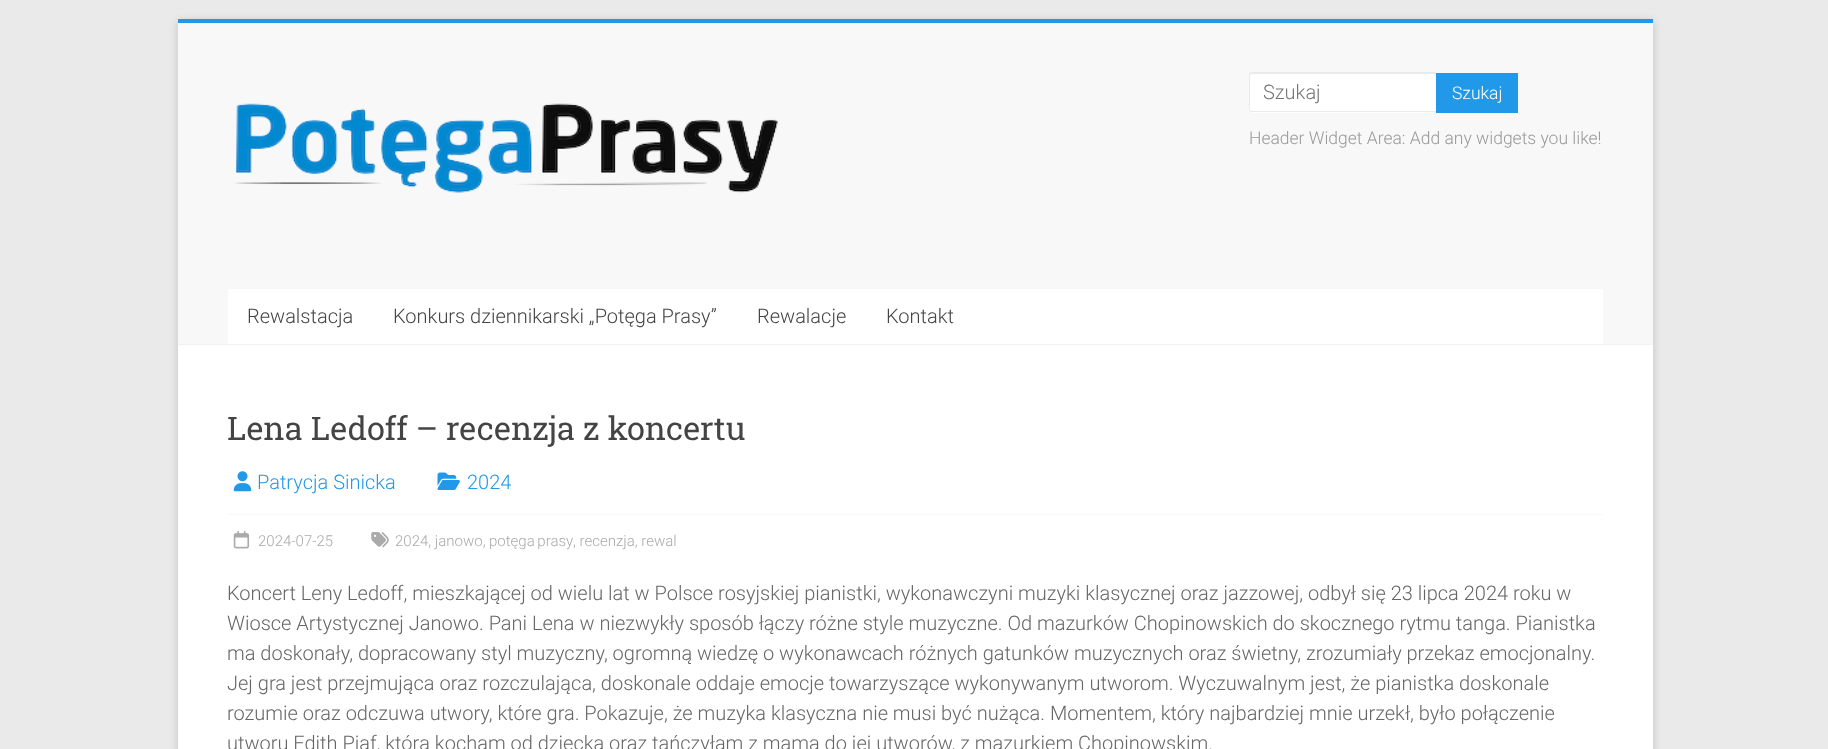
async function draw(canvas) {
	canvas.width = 1828;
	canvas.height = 749;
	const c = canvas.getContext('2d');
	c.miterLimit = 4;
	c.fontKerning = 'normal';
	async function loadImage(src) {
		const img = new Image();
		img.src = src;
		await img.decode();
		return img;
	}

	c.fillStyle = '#eaeaea';
	c.fillRect(0, 0, 1828, 749);
	c.fillStyle = '#6464644d';
	c.filter = 'blur(4px)';
	c.beginPath();
	c.rect(178, 21, 1475, 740);
	c.fill();
	c.filter = 'none';
	for (const [x, y, w, h, color] of [
		[178, 345, 1475, 404, '#fff'],
		[178, 19, 1475, 4, '#2299e8'],
		[178, 23, 1475, 321, '#f8f8f8'],
		[178, 344, 1475, 1, '#f2f2f2'],
	]) {
		c.fillStyle = color;
		c.fillRect(x, y, w, h);
	}
	c.drawImage(await loadImage('img1.png'), 235, 103, 543, 90);
	c.fillStyle = '#fff';
	c.beginPath();
	c.roundRect(1249, 73, 187, 40, [4, 0, 0, 4]);
	c.fill();
	c.fillStyle = '#eaeaea';
	c.beginPath();
	c.moveTo(1252, 72);
	c.lineTo(1436, 72);
	c.lineTo(1436, 112);
	c.lineTo(1252, 112);
	c.bezierCurveTo(1250, 112, 1249, 111, 1249, 109);
	c.lineTo(1249, 76);
	c.bezierCurveTo(1249, 74, 1250, 72, 1252, 72);
	c.closePath();
	c.moveTo(1252, 74);
	c.lineTo(1436, 74);
	c.lineTo(1436, 111);
	c.lineTo(1252, 111);
	c.bezierCurveTo(1251, 111, 1250, 110, 1250, 109);
	c.lineTo(1250, 76);
	c.bezierCurveTo(1250, 75, 1251, 74, 1252, 74);
	c.closePath();
	c.fill('evenodd');
	c.font = '300 20px Roboto';
	c.fillStyle = '#757575';
	c.fillText('Szukaj', 1263, 99);
	c.fillStyle = '#2299e8';
	c.fillRect(1436, 73, 82, 40);
	c.font = '300 17.5px Roboto';
	c.fillStyle = '#fff';
	c.fillText('Szukaj', 1452, 99);
	c.fillStyle = '#999';
	c.fillText('Header Widget Area: Add any widgets you like!', 1249, 144);
	c.fillStyle = '#fff';
	c.fillRect(228, 289, 1375, 55);
	c.font = '300 20px Roboto';
	c.fillStyle = '#444';
	for (const [text, x, y] of [
		['Rewalstacja', 247, 323],
		['Konkurs dziennikarski „Potęga Prasy”', 393, 323],
		['Rewalacje', 757, 323],
		['Kontakt', 886, 323],
	]) {
		c.fillText(text, x, y);
	}
	c.font = '32.5px Roboto Slab';
	c.fillText('Lena Ledoff – recenzja z koncertu', 227, 440);
	c.drawImage(await loadImage('img2.png'), 233, 471, 19, 21);
	c.font = '300 20px Roboto';
	c.fillStyle = '#2299e8';
	c.fillText('Patrycja Sinicka', 257, 489);
	c.drawImage(await loadImage('img3.png'), 437, 472, 23, 18);
	c.fillText('2024', 467, 489);
	c.fillStyle = '#f8f8f8';
	c.fillRect(228, 514, 1375, 1);
	c.drawImage(await loadImage('img4.png'), 233, 531, 17, 18);
	c.font = '300 15px Roboto';
	c.fillStyle = '#aaa';
	c.fillText('2024-07-25', 258, 546);
	c.drawImage(await loadImage('img5.png'), 371, 532, 18, 16);
	c.fillText('2024, janowo,', 395, 546);
	c.wordSpacing = '-1px';
	c.fillText('potęga prasy', 489, 546);
	c.wordSpacing = '0px';
	c.fillText(', recenzja, rewal', 573, 546);
	c.font = '300 20px Roboto';
	c.fillStyle = '#666';
	for (const [text, x, y] of [
		['Koncert Leny Ledoff, mieszkającej od wielu lat w Polsce rosyjskiej pianistki, wykonawczyni muzyki klasycznej oraz jazzowej, odbył się 23 lipca 2024 roku w', 227, 600],
		['Wiosce Artystycznej Janowo. Pani Lena w niezwykły sposób łączy różne style muzyczne. Od mazurków Chopinowskich do skocznego rytmu tanga. Pianistka', 227, 630],
		['ma doskonały, dopracowany styl muzyczny, ogromną wiedzę o wykonawcach różnych gatunków muzycznych oraz świetny, zrozumiały przekaz emocjonalny.', 227, 660],
		['Jej gra jest przejmująca oraz rozczulająca, doskonale oddaje emocje towarzyszące wykonywanym utworom. Wyczuwalnym jest, że pianistka doskonale', 227, 690],
		['rozumie oraz odczuwa utwory, które gra. Pokazuje, że muzyka klasyczna nie musi być nużąca. Momentem, który najbardziej mnie urzekł, było połączenie', 227, 720],
		['utworu Edith Piaf, którą kocham od dziecka oraz tańczyłam z mamą do jej utworów, z mazurkiem Chopinowskim.', 227, 750],
	]) {
		c.fillText(text, x, y);
	}
}

draw(document.querySelector('canvas'));
